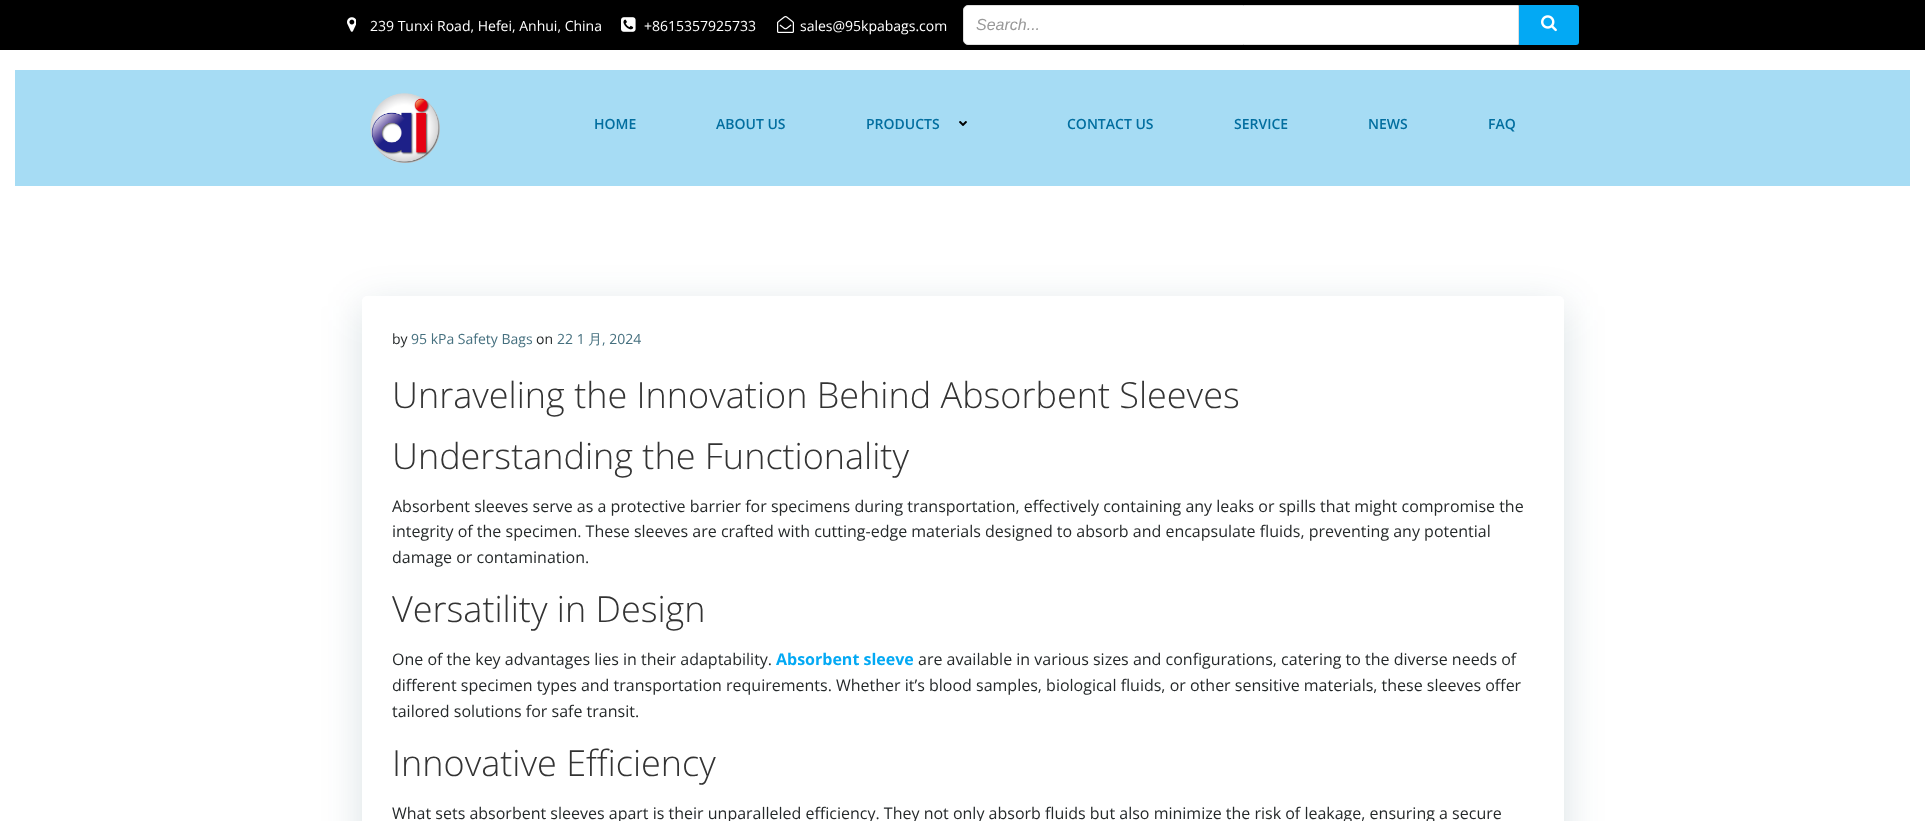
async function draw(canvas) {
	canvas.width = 1925;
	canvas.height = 821;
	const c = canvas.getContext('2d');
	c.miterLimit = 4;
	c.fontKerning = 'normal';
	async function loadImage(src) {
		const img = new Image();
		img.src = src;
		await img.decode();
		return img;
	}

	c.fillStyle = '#000';
	c.fillRect(0, 0, 1925, 821);
	c.drawImage(await loadImage('img1.png'), 347, 17, 9, 15);
	c.font = '14px Open Sans';
	c.fillStyle = '#fff';
	c.fillText('239 Tunxi Road, Hefei, Anhui, China', 370, 31);
	c.drawImage(await loadImage('img2.png'), 621, 17, 15, 15);
	c.fillText('+8615357925733', 644, 31);
	c.drawImage(await loadImage('img3.png'), 777, 16, 17, 17);
	c.fillText('sales@95kpabags.com', 800, 31);
	c.beginPath();
	c.roundRect(963.5, 5.5, 555, 39, [4.5, 0, 0, 4.5]);
	c.fill();
	c.strokeStyle = '#dedede';
	c.stroke();
	c.font = 'italic 16px Liberation Sans';
	c.fillStyle = '#999';
	c.fillText('Search...', 976, 30);
	c.fillStyle = '#03a9f4';
	c.beginPath();
	c.roundRect(1519, 5, 60, 40, [0, 3, 3, 0]);
	c.fill();
	c.drawImage(await loadImage('img4.png'), 1541, 15, 16, 17);
	c.fillStyle = '#fff';
	c.fillRect(0, 50, 1925, 771);
	c.fillStyle = '#a6dcf4';
	c.fillRect(15, 70, 1895, 116);
	c.drawImage(await loadImage('img5.png'), 370, 93, 70, 70);
	c.font = '600 14px Open Sans';
	c.fillStyle = '#026e9f';
	for (const [text, x, y] of [
		['HOME', 594, 129],
		['ABOUT US', 716, 129],
		['PRODUCTS', 866, 129],
	]) {
		c.fillText(text, x, y);
	}
	c.drawImage(await loadImage('img6.png'), 959, 121, 8, 5);
	for (const [text, x, y] of [
		['CONTACT US', 1067, 129],
		['SERVICE', 1234, 129],
		['NEWS', 1368, 129],
		['FAQ', 1488, 129],
	]) {
		c.fillText(text, x, y);
	}
	c.fillStyle = '#01334a26';
	c.filter = 'blur(20px)';
	c.beginPath();
	c.roundRect(362, 306, 1202, 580, 5);
	c.fill();
	c.filter = 'none';
	c.fillStyle = '#fff';
	c.beginPath();
	c.roundRect(362, 296, 1202, 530, 5);
	c.fill();
	c.font = '14px Open Sans';
	c.fillStyle = '#25292a';
	c.fillText('by', 392, 344);
	c.fillStyle = '#46707f';
	c.fillText('95 kPa Safety Bags', 411, 344);
	c.fillStyle = '#25292a';
	c.fillText('on', 536, 344);
	c.fillStyle = '#46707f';
	c.fillText('22 1', 557, 344);
	c.font = '500 14px WenQuanYi Zen Hei';
	c.fillText('月', 588, 344);
	c.font = '14px Open Sans';
	c.fillText(', 2024', 602, 344);
	c.font = '300 36px Open Sans';
	c.fillStyle = '#333';
	c.fillText('Unraveling the Innovation Behind Absorbent Sleeves', 392, 408);
	c.fillText('Understanding the Functionality', 392, 469);
	c.font = '16px Open Sans';
	c.fillStyle = '#25292a';
	for (const [text, x, y] of [
		['Absorbent sleeves serve as a protective barrier for specimens during transportation, effectively containing any leaks or spills that might compromise the', 392, 512],
		['integrity of the specimen. These sleeves are crafted with cutting-edge materials designed to absorb and encapsulate fluids, preventing any potential', 392, 537],
		['damage or contamination.', 392, 563],
	]) {
		c.fillText(text, x, y);
	}
	c.font = '300 36px Open Sans';
	c.fillStyle = '#333';
	c.fillText('Versatility in Design', 392, 622);
	c.font = '16px Open Sans';
	c.fillStyle = '#25292a';
	c.fillText('One of the key advantages lies in their adaptability.', 392, 665);
	c.font = 'bold 16px Open Sans';
	c.fillStyle = '#03a9f4';
	c.fillText('Absorbent sleeve', 776, 665);
	c.font = '16px Open Sans';
	c.fillStyle = '#25292a';
	for (const [text, x, y] of [
		['are available in various sizes and configurations, catering to the diverse needs of', 918, 665],
		['different specimen types and transportation requirements. Whether it’s blood samples, biological fluids, or other sensitive materials, these sleeves offer', 392, 691],
		['tailored solutions for safe transit.', 392, 717],
	]) {
		c.fillText(text, x, y);
	}
	c.font = '300 36px Open Sans';
	c.fillStyle = '#333';
	c.fillText('Innovative Efficiency', 392, 776);
	c.font = '16px Open Sans';
	c.fillStyle = '#25292a';
	c.fillText('What sets absorbent sleeves apart is their unparalleled efficiency. They not only absorb fluids but also minimize the risk of leakage, ensuring a secure', 392, 819);
}

draw(document.querySelector('canvas'));
